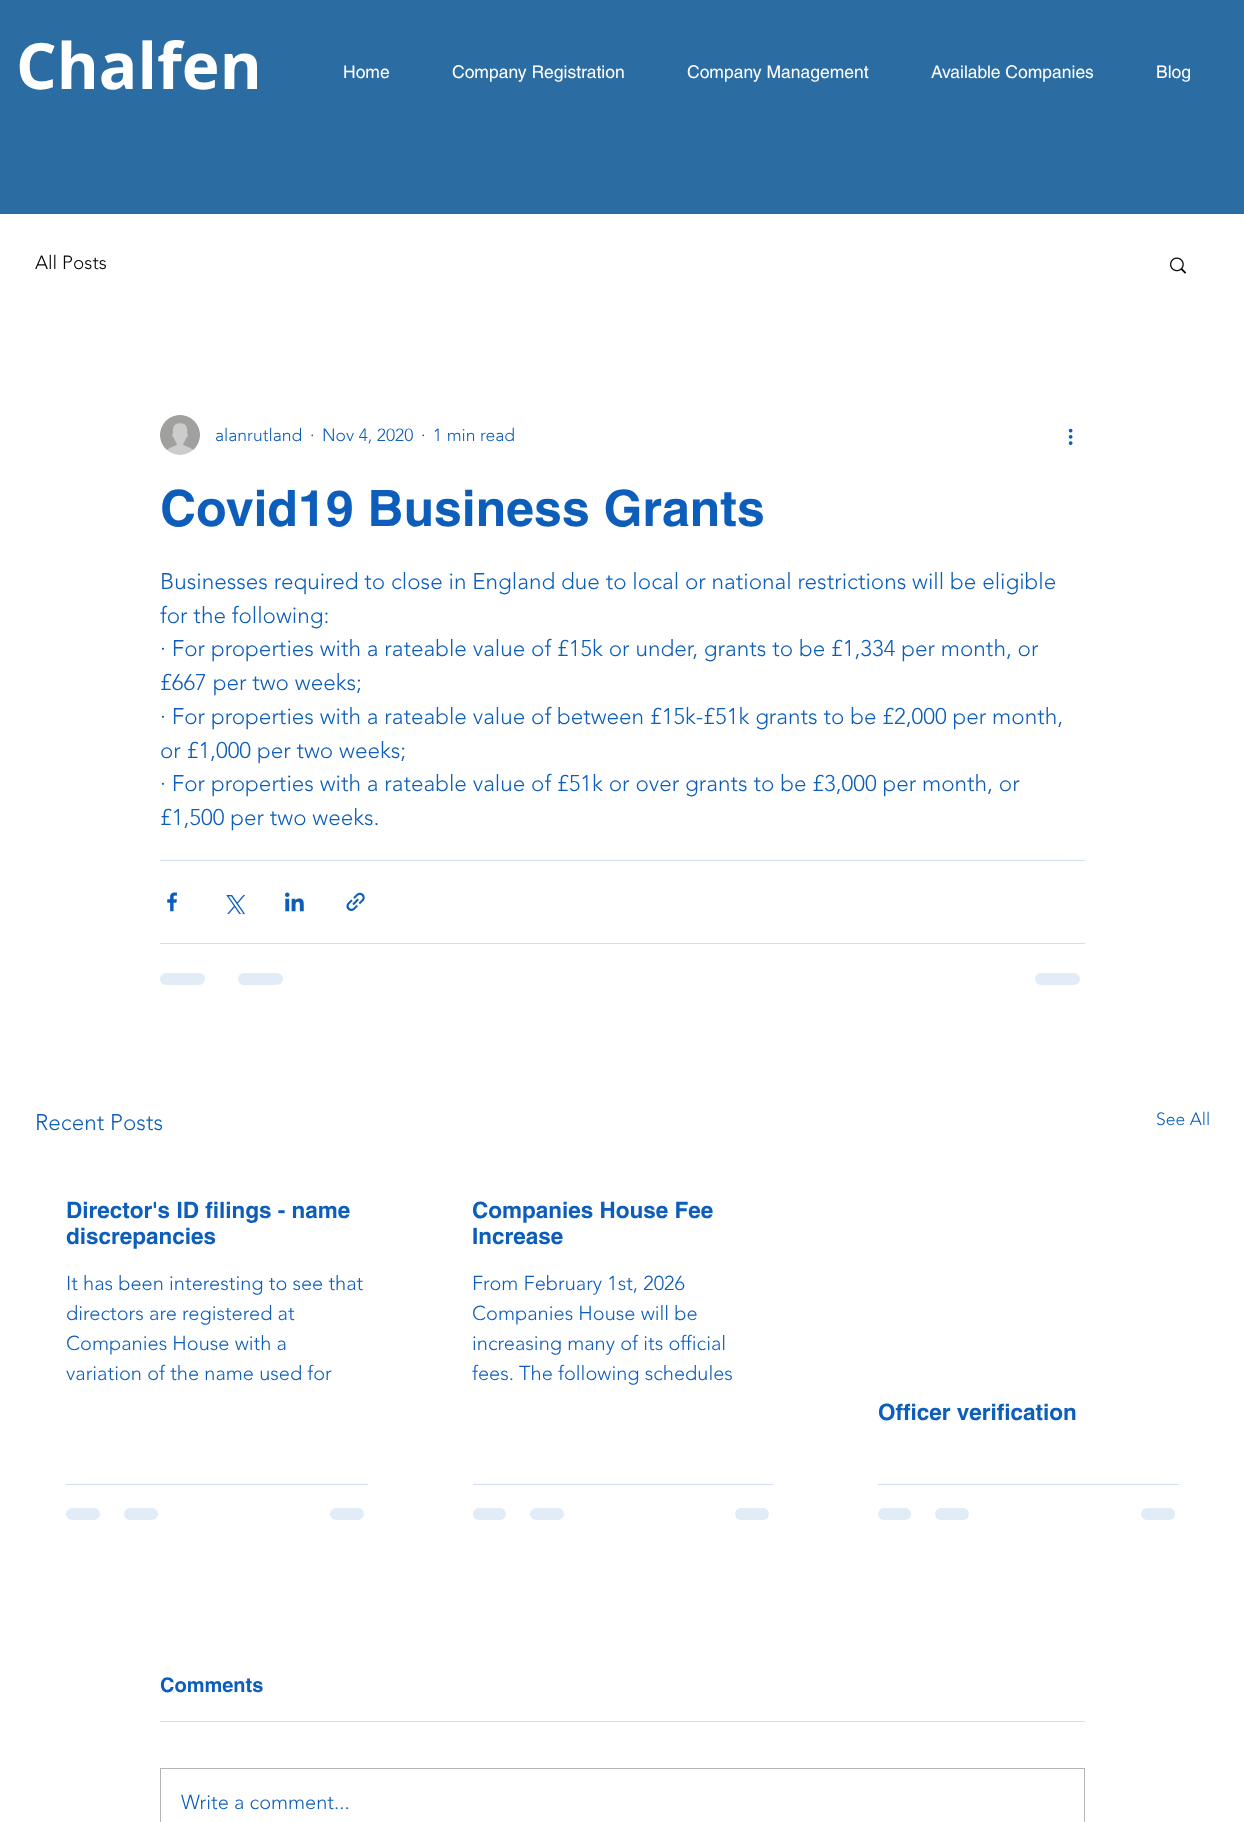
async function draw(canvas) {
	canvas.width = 1244;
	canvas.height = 1822;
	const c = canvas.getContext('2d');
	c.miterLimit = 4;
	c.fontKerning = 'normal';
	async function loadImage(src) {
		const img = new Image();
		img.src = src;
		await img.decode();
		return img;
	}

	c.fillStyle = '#fff';
	c.fillRect(0, 0, 1244, 1822);
	c.fillStyle = '#2b6ca3';
	c.fillRect(0, 0, 1244, 214);
	c.font = 'bold 64px Open Sans';
	c.fillStyle = '#fff';
	c.fillText('Chalfen', 16, 89);
	c.font = '17.5px helvetica';
	for (const [text, x, y] of [
		['Home', 343, 78],
		['Company Registration', 452, 78],
		['Company Management', 687, 78],
		['Available Companies', 931, 78],
		['Blog', 1156, 78],
	]) {
		c.fillText(text, x, y);
	}
	c.font = '300 19px "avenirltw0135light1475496"';
	c.fillStyle = '#000';
	c.fillText('All Posts', 35, 269);
	c.drawImage(await loadImage('img1.png'), 1170, 257, 17, 17);
	c.drawImage(await loadImage('img2.png'), 160, 415, 40, 40);
	c.font = '300 17.5px "avenirltw0135light1475496"';
	c.fillStyle = '#0d5eba';
	for (const [text, x, y] of [
		['alanrutland', 215, 441],
		['·', 310, 441],
		['Nov 4, 2020', 322, 441],
		['·', 421, 441],
		['1 min read', 433, 441],
	]) {
		c.fillText(text, x, y);
	}
	c.drawImage(await loadImage('img3.png'), 1068, 428, 5, 17);
	c.font = 'bold 50px helvetica';
	c.fillText('Covid19 Business Grants', 160, 526);
	c.font = '300 22.5px "avenirltw0135light1475496"';
	for (const [text, x, y] of [
		['Businesses required to close in England due to local or national restrictions will be eligible', 160, 589],
		['for the following:', 160, 623],
		['· For properties with a rateable value of £15k or under, grants to be £1,334 per month, or', 160, 656],
		['£667 per two weeks;', 160, 690],
		['· For properties with a rateable value of between £15k-£51k grants to be £2,000 per month,', 160, 724],
		['or £1,000 per two weeks;', 160, 758],
		['· For properties with a rateable value of £51k or over grants to be £3,000 per month, or', 160, 791],
		['£1,500 per two weeks.', 160, 825],
	]) {
		c.fillText(text, x, y);
	}
	c.fillStyle = '#cfdff1';
	c.fillRect(160, 860, 925, 1);
	c.drawImage(await loadImage('img4.png'), 167, 892, 10, 20);
	c.drawImage(await loadImage('img5.png'), 226, 895, 19, 19);
	c.drawImage(await loadImage('img6.png'), 285, 892, 19, 20);
	c.drawImage(await loadImage('img7.png'), 346, 892, 19, 19);
	c.fillRect(160, 943, 925, 1);
	c.fillStyle = '#e2ecf7';
	c.beginPath();
	c.roundRect(160, 973, 45, 12, 6);
	c.fill();
	c.beginPath();
	c.roundRect(238, 973, 45, 12, 6);
	c.fill();
	c.beginPath();
	c.roundRect(1035, 973, 45, 12, 6);
	c.fill();
	c.fillStyle = '#0d5eba';
	c.fillText('Recent Posts', 35, 1130);
	c.font = '300 17.5px "avenirltw0135light1475496"';
	c.fillText('See All', 1156, 1125);
	c.font = 'bold 22.5px helvetica';
	c.fillText('Director\'s ID filings - name', 66, 1218);
	c.fillText('discrepancies', 66, 1244);
	c.font = '300 20px "avenirltw0135light1475496"';
	for (const [text, x, y] of [
		['It has been interesting to see that', 66, 1290],
		['directors are registered at', 66, 1320],
		['Companies House with a', 66, 1350],
		['variation of the name used for', 66, 1380],
	]) {
		c.fillText(text, x, y);
	}
	c.fillStyle = '#cfdff1';
	c.fillRect(66, 1484, 302, 1);
	c.fillStyle = '#e2ecf7';
	c.beginPath();
	c.roundRect(66, 1508, 34, 12, 6);
	c.fill();
	c.beginPath();
	c.roundRect(124, 1508, 34, 12, 6);
	c.fill();
	c.beginPath();
	c.roundRect(330, 1508, 34, 12, 6);
	c.fill();
	c.font = 'bold 22.5px helvetica';
	c.fillStyle = '#0d5eba';
	c.fillText('Companies House Fee', 472, 1218);
	c.fillText('Increase', 472, 1244);
	c.font = '300 20px "avenirltw0135light1475496"';
	for (const [text, x, y] of [
		['From February 1st, 2026', 472, 1290],
		['Companies House will be', 472, 1320],
		['increasing many of its official', 472, 1350],
		['fees. The following schedules', 472, 1380],
	]) {
		c.fillText(text, x, y);
	}
	c.fillStyle = '#cfdff1';
	c.fillRect(473, 1484, 300, 1);
	c.fillStyle = '#e2ecf7';
	c.beginPath();
	c.roundRect(473, 1508, 33, 12, 6);
	c.fill();
	c.beginPath();
	c.roundRect(530, 1508, 34, 12, 6);
	c.fill();
	c.beginPath();
	c.roundRect(735, 1508, 34, 12, 6);
	c.fill();
	c.font = 'bold 22.5px helvetica';
	c.fillStyle = '#0d5eba';
	c.fillText('Officer verification', 878, 1420);
	c.fillStyle = '#cfdff1';
	c.fillRect(878, 1484, 301, 1);
	c.fillStyle = '#e2ecf7';
	c.beginPath();
	c.roundRect(878, 1508, 33, 12, 6);
	c.fill();
	c.beginPath();
	c.roundRect(935, 1508, 34, 12, 6);
	c.fill();
	c.beginPath();
	c.roundRect(1141, 1508, 34, 12, 6);
	c.fill();
	c.font = 'bold 20px helvetica';
	c.fillStyle = '#0d5eba';
	c.fillText('Comments', 160, 1692);
	c.fillStyle = '#cfdff1';
	c.fillRect(160, 1721, 925, 1);
	c.strokeStyle = '#b3b3b3';
	c.strokeRect(160.5, 1768.5, 924, 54);
	c.font = '300 20px "avenirltw0135light1475496"';
	c.fillStyle = '#0d5eba';
	c.fillText('Write a comment...', 181, 1809);
}

draw(document.querySelector('canvas'));
